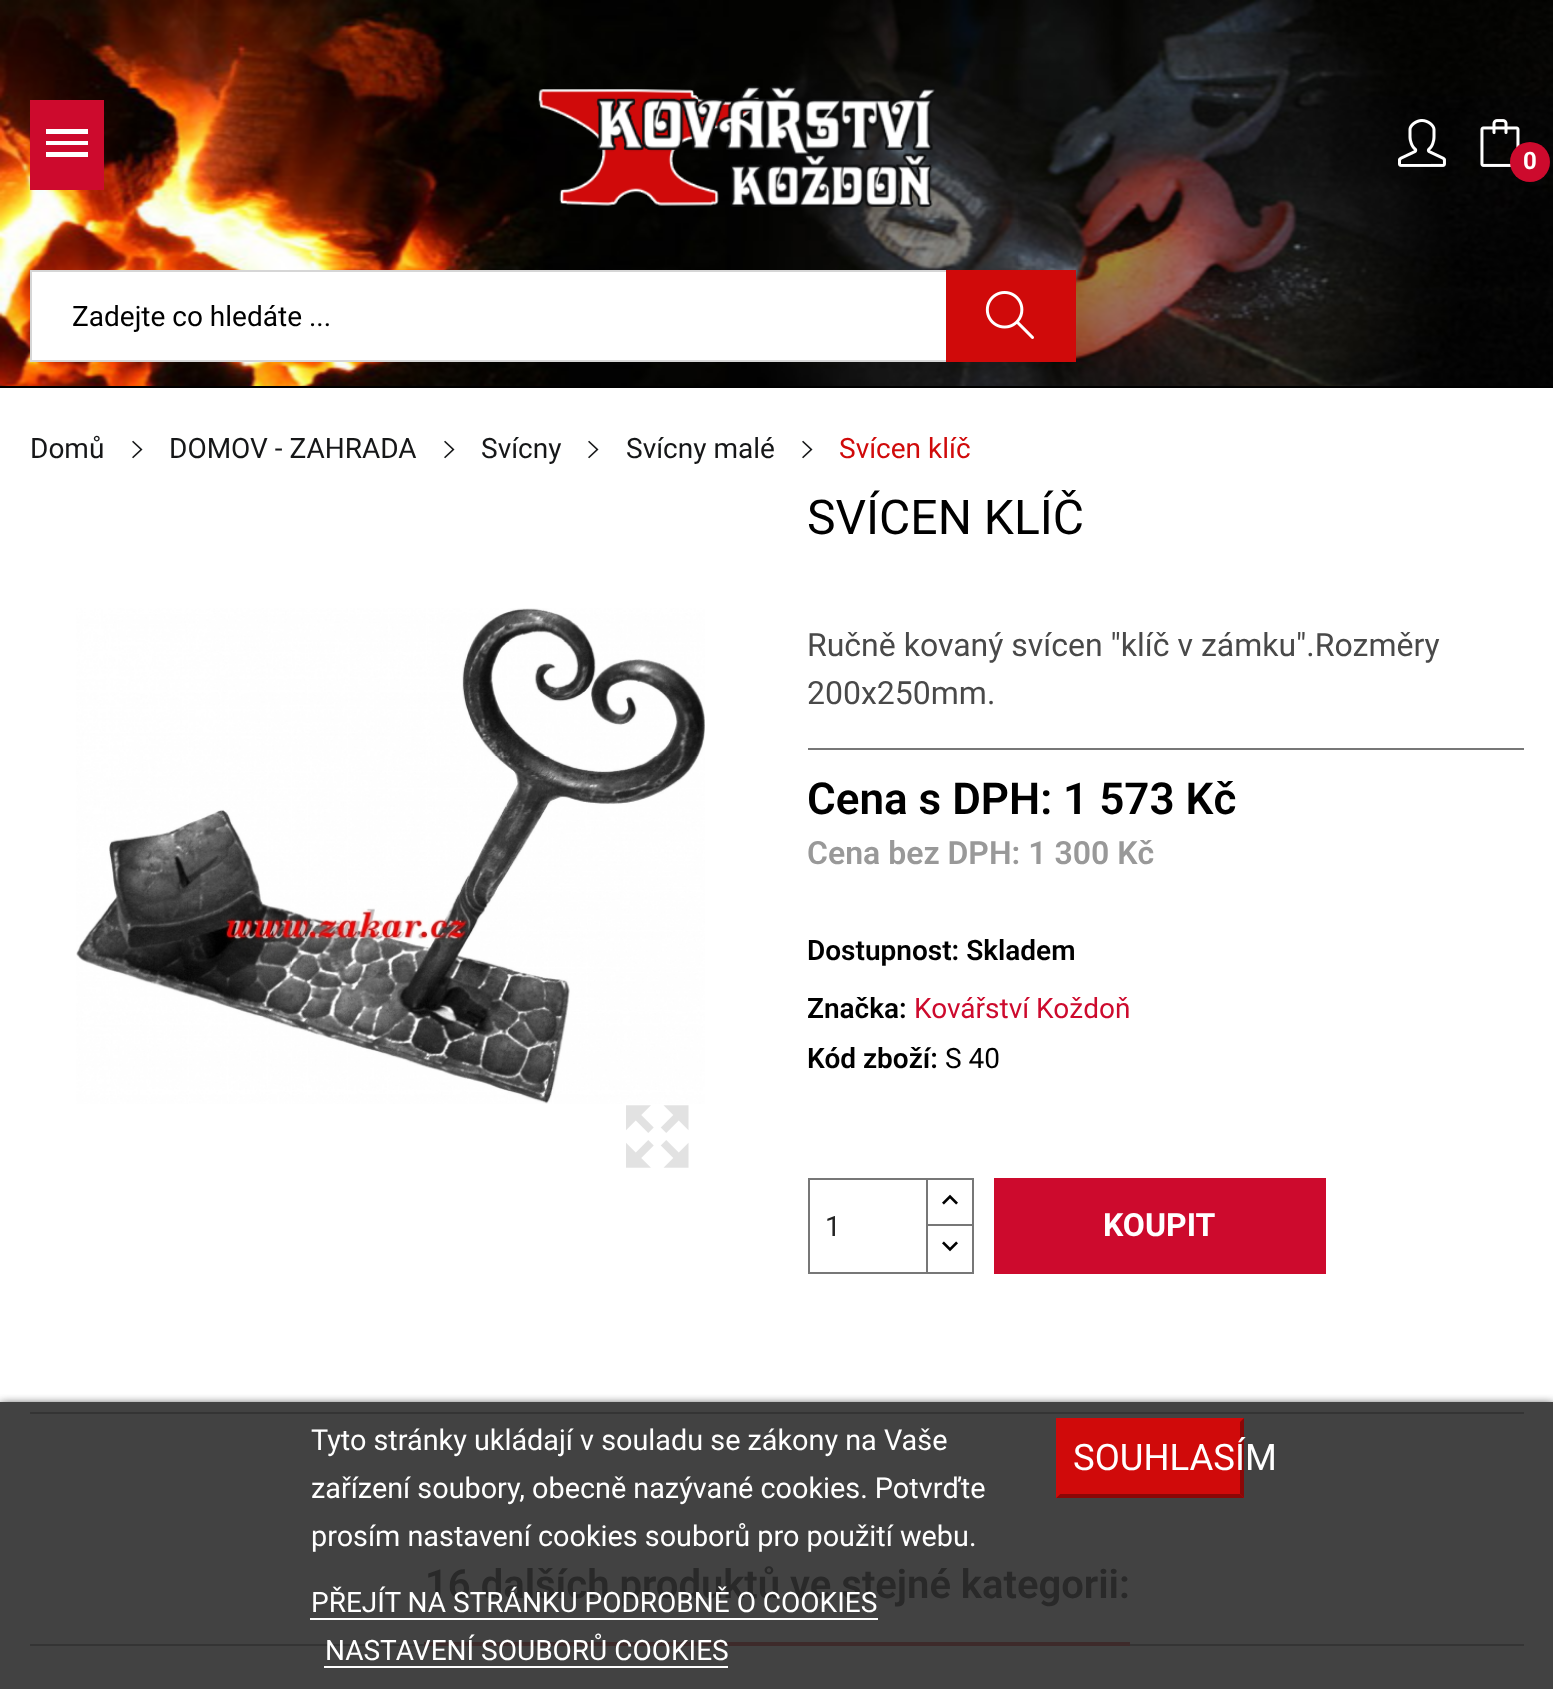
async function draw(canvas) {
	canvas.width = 1553;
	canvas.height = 1689;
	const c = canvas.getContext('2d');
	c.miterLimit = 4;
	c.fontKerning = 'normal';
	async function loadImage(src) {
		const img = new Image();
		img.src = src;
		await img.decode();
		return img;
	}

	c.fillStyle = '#fff';
	c.fillRect(0, 0, 1553, 1689);
	c.fillStyle = '#424242';
	c.fillRect(0, 1402, 1553, 287);
	c.drawImage(await loadImage('img1.png'), 0, 0, 1553, 386);
	c.fillStyle = '#000';
	c.fillRect(0, 386, 1553, 2);
	c.fillStyle = '#cd0a2d';
	c.fillRect(30, 100, 74, 90);
	c.fillStyle = '#fff';
	c.beginPath();
	c.moveTo(46, 157);
	c.lineTo(46, 152);
	c.lineTo(88, 152);
	c.lineTo(88, 157);
	c.closePath();
	c.moveTo(46, 145);
	c.lineTo(46, 141);
	c.lineTo(88, 141);
	c.lineTo(88, 145);
	c.closePath();
	c.moveTo(46, 129);
	c.lineTo(88, 129);
	c.lineTo(88, 134);
	c.lineTo(46, 134);
	c.closePath();
	c.fill();
	c.drawImage(await loadImage('img2.png'), 538, 85, 397, 123);
	c.drawImage(await loadImage('img3.png'), 1398, 119, 48, 48);
	c.drawImage(await loadImage('img4.png'), 1480, 119, 40, 48);
	c.fillStyle = '#cd0a2d';
	c.beginPath();
	c.arc(1530, 162, 20, 0, 2 * Math.PI);
	c.fill();
	c.font = 'bold 24px Roboto';
	c.fillStyle = '#fff';
	c.fillText('0', 1523, 169);
	c.fillRect(32, 272, 914, 88);
	c.strokeStyle = '#d6d6d6';
	c.lineWidth = 2;
	c.strokeRect(31, 271, 1044, 90);
	c.font = '28px Roboto';
	c.fillStyle = '#000';
	c.fillText('Zadejte co hledáte ...', 72, 326);
	c.fillStyle = '#d00a0a';
	c.fillRect(946, 270, 130, 92);
	c.drawImage(await loadImage('img5.png'), 985, 291, 49, 48);
	c.fillStyle = '#161718';
	c.fillText('Domů', 30, 458);
	c.drawImage(await loadImage('img6.png'), 132, 440, 11, 19);
	c.fillText('DOMOV - ZAHRADA', 169, 458);
	c.drawImage(await loadImage('img6.png'), 444, 440, 11, 19);
	c.fillText('Svícny', 481, 458);
	c.drawImage(await loadImage('img6.png'), 588, 440, 11, 19);
	c.fillText('Svícny malé', 626, 458);
	c.drawImage(await loadImage('img6.png'), 802, 440, 11, 19);
	c.fillStyle = '#d00a0a';
	c.fillText('Svícen klíč', 839, 458);
	c.drawImage(await loadImage('img7.png'), 76, 608, 629, 496);
	c.drawImage(await loadImage('img8.png'), 626, 1105, 63, 63);
	c.font = '48px Roboto';
	c.fillStyle = '#000';
	c.fillText('SVÍCEN KLÍČ', 807, 534);
	c.fillStyle = '#777';
	c.fillRect(808, 748, 716, 2);
	c.font = '32px Roboto';
	c.fillStyle = '#494949';
	c.fillText('Ručně kovaný svícen "klíč v zámku".Rozměry', 807, 656);
	c.fillText('200x250mm.', 807, 704);
	c.font = '600 44px Roboto';
	c.fillStyle = '#000';
	c.fillText('Cena s DPH: 1 573 Kč', 807, 814);
	c.font = '600 32px Roboto';
	c.fillStyle = '#999';
	c.fillText('Cena bez DPH: 1 300 Kč', 807, 864);
	c.font = '600 28px Roboto';
	c.fillStyle = '#000';
	c.fillText('Dostupnost: Skladem', 807, 960);
	c.fillText('Značka:', 807, 1018);
	c.font = '28px Roboto';
	c.fillStyle = '#cd0a2d';
	c.fillText('Kovářství Koždoň', 914, 1018);
	c.font = '600 28px Roboto';
	c.fillStyle = '#000';
	c.fillText('Kód zboží:', 807, 1068);
	c.font = '28px Roboto';
	c.fillText('S 40', 945, 1068);
	c.strokeStyle = '#777';
	c.strokeRect(927, 1179, 46, 48);
	c.fillStyle = '#fff';
	c.fillRect(928, 1226, 44, 2);
	c.strokeRect(927, 1225, 46, 48);
	c.strokeRect(809, 1179, 118, 94);
	c.fillStyle = '#232323';
	c.fillText('1', 825, 1236);
	c.drawImage(await loadImage('img9.png'), 942, 1194, 16, 11);
	c.drawImage(await loadImage('img10.png'), 942, 1241, 16, 11);
	c.fillStyle = '#cd0a2d';
	c.fillRect(994, 1178, 332, 96);
	c.font = 'bold 32px Roboto';
	c.fillStyle = '#fff';
	c.fillText('KOUPIT', 1103, 1236);
	c.fillStyle = '#343434';
	c.fillRect(30, 1412, 1494, 2);
	c.fillRect(30, 1644, 1494, 2);
	c.font = '600 40px Roboto';
	c.fillStyle = '#292929';
	c.fillText('16 dalších produktů ve stejné kategorii:', 425, 1598);
	c.fillStyle = '#3d2a2a';
	c.fillRect(424, 1642, 706, 4);
	c.save();
	c.beginPath();
	c.rect(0, 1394, 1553, 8);
	c.clip();
	c.fillStyle = '#2d2d2d';
	c.filter = 'blur(5px)';
	c.beginPath();
	c.rect(0, 1404, 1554, 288);
	c.fill();
	c.filter = 'none';
	c.restore();
	c.font = '28.8px Roboto';
	c.fillStyle = '#fff';
	for (const [text, x, y] of [
		['Tyto stránky ukládají v souladu se zákony na Vaše', 311, 1450],
		['zařízení soubory, obecně nazývané cookies. Potvrďte', 311, 1498],
		['prosím nastavení cookies souborů pro použití webu.', 311, 1546],
	]) {
		c.fillText(text, x, y);
	}
	c.font = '28px Roboto';
	c.fillText('PŘEJÍT NA STRÁNKU PODROBNĚ O COOKIES', 311, 1612);
	c.fillRect(310, 1618, 568, 2);
	c.fillText('NASTAVENÍ SOUBORŮ COOKIES', 325, 1660);
	c.fillRect(324, 1666, 404, 2);
	c.fillStyle = '#d00a0a';
	c.fillRect(1056, 1418, 188, 80);
	c.fillStyle = '#8b0707';
	c.beginPath();
	c.moveTo(1244, 1418);
	c.lineTo(1244, 1498);
	c.lineTo(1240, 1494);
	c.lineTo(1240, 1422);
	c.closePath();
	c.fill();
	c.beginPath();
	c.moveTo(1244, 1498);
	c.lineTo(1056, 1498);
	c.lineTo(1060, 1494);
	c.lineTo(1240, 1494);
	c.closePath();
	c.fill();
	c.fillStyle = '#d00a0a';
	c.beginPath();
	c.moveTo(1056, 1498);
	c.lineTo(1056, 1418);
	c.lineTo(1060, 1422);
	c.lineTo(1060, 1494);
	c.closePath();
	c.fill();
	c.font = '36.5px Roboto';
	c.fillStyle = '#fff';
	c.fillText('SOUHLASÍM', 1073, 1470);
}

draw(document.querySelector('canvas'));
